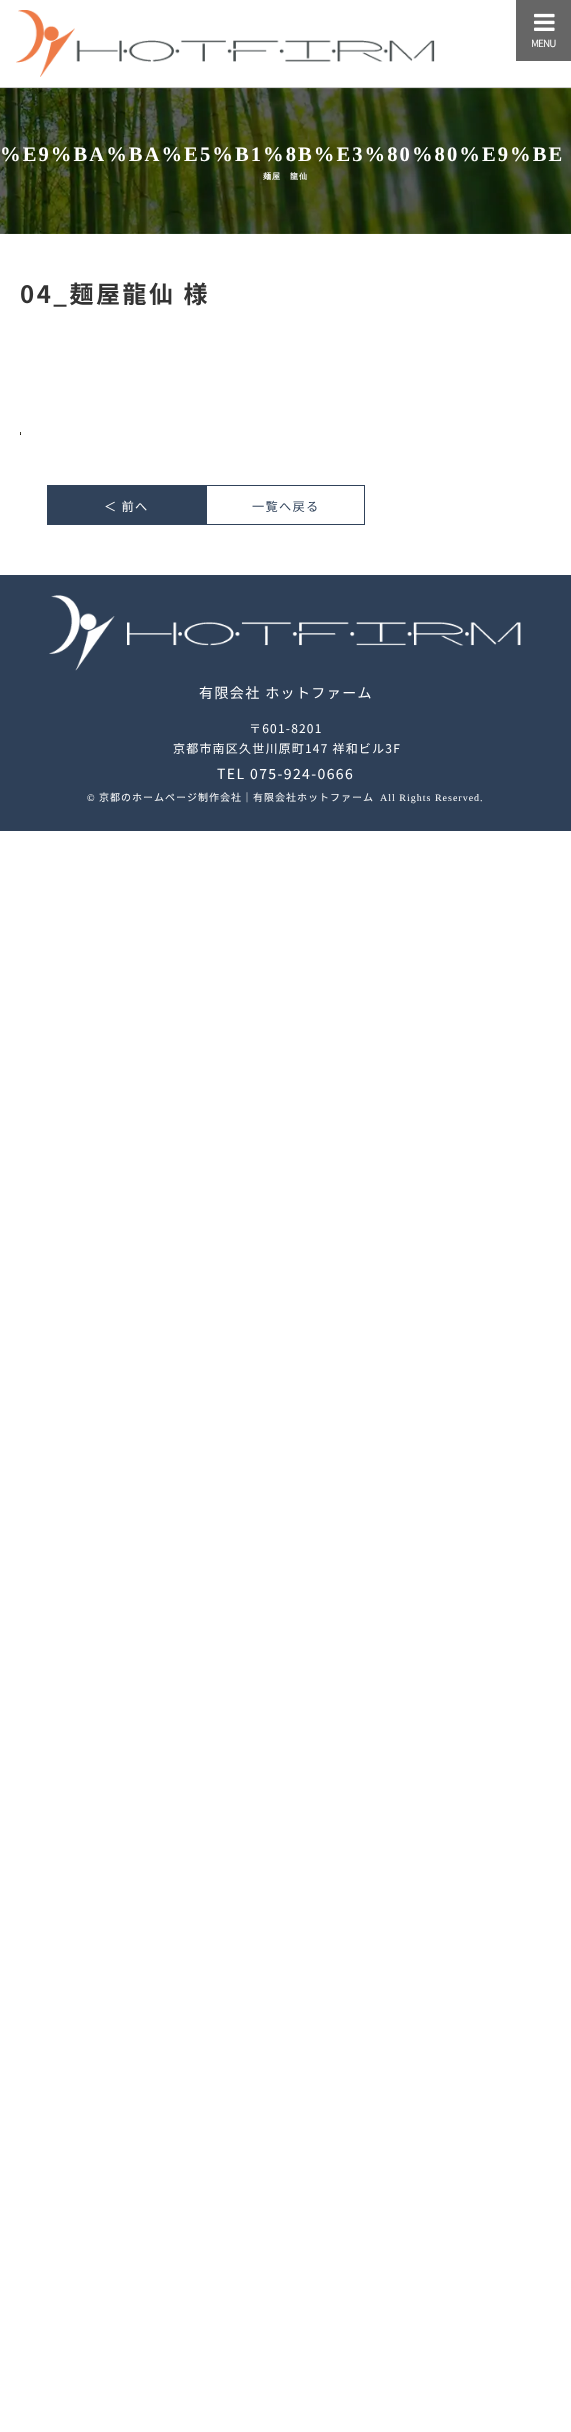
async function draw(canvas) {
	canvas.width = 571;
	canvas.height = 2432;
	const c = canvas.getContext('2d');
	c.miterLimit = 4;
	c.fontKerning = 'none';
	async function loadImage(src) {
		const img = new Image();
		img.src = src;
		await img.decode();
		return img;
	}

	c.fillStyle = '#fff';
	c.fillRect(0, 0, 571, 2432);
	c.fillStyle = '#cdcdcd';
	c.fillRect(0, 87, 571, 1);
	c.drawImage(await loadImage('img1.png'), 16, 10, 419, 67);
	c.fillStyle = '#666';
	c.fillRect(516, 0, 55, 61);
	c.drawImage(await loadImage('img2.png'), 534, 13, 21, 18);
	c.letterSpacing = '-1px';
	c.font = '10px Noto Sans JP';
	c.fillStyle = '#fff';
	c.fillText('MENU', 531, 47);
	c.drawImage(await loadImage('img3.png'), 0, 88, 571, 146);
	c.letterSpacing = '2.05px';
	c.font = 'bold 20.6px Liberation Serif';
	c.fillText('%E9%BA%BA%E5%B1%8B%E3%80%80%E9%BE', 0, 161);
	c.letterSpacing = '1px';
	c.font = 'bold 8px WenQuanYi Zen Hei';
	c.fillText('麺屋　龍仙', 263, 179);
	c.letterSpacing = '2.5px';
	c.font = 'bold 24px Noto Sans JP';
	c.fillStyle = '#333';
	c.fillText('04_麺屋龍仙 様', 20, 303);
	c.drawImage(await loadImage('img4.png'), 20, 432, 1, 3);
	c.fillStyle = '#30425a';
	c.fillRect(47, 485, 159, 40);
	c.letterSpacing = '1.25px';
	c.font = '12.25px Noto Sans JP';
	c.fillStyle = '#fff';
	c.fillText('＜ 前へ', 104, 511);
	c.strokeStyle = '#30425a';
	c.strokeRect(206.5, 485.5, 158, 39);
	c.fillStyle = '#30425a';
	c.fillText('一覧へ戻る', 252, 511);
	c.fillStyle = '#2e4058';
	c.fillRect(0, 575, 571, 256);
	c.drawImage(await loadImage('img5.png'), 49, 595, 472, 76);
	c.letterSpacing = '1.4px';
	c.font = '14px Noto Sans JP';
	c.fillStyle = '#fff';
	c.fillText('有限会社 ホットファーム', 199, 698);
	c.letterSpacing = '1.2px';
	c.font = '12px Noto Sans JP';
	c.fillText('〒601-8201', 249, 733);
	c.fillText('京都市南区久世川原町147 祥和ビル3F', 173, 753);
	c.letterSpacing = '1.4px';
	c.font = '14px Noto Sans JP';
	c.fillText('TEL 075-924-0666', 217, 779);
	c.letterSpacing = '1px';
	c.font = '10px Liberation Serif';
	c.fillText('©', 87, 801);
	c.font = '10px Noto Sans JP';
	c.fillText('京都のホームページ制作会社｜有限会社ホットファーム', 99, 801);
	c.font = '10px Liberation Serif';
	c.fillText('All Rights Reserved.', 380, 801);
}

draw(document.querySelector('canvas'));
